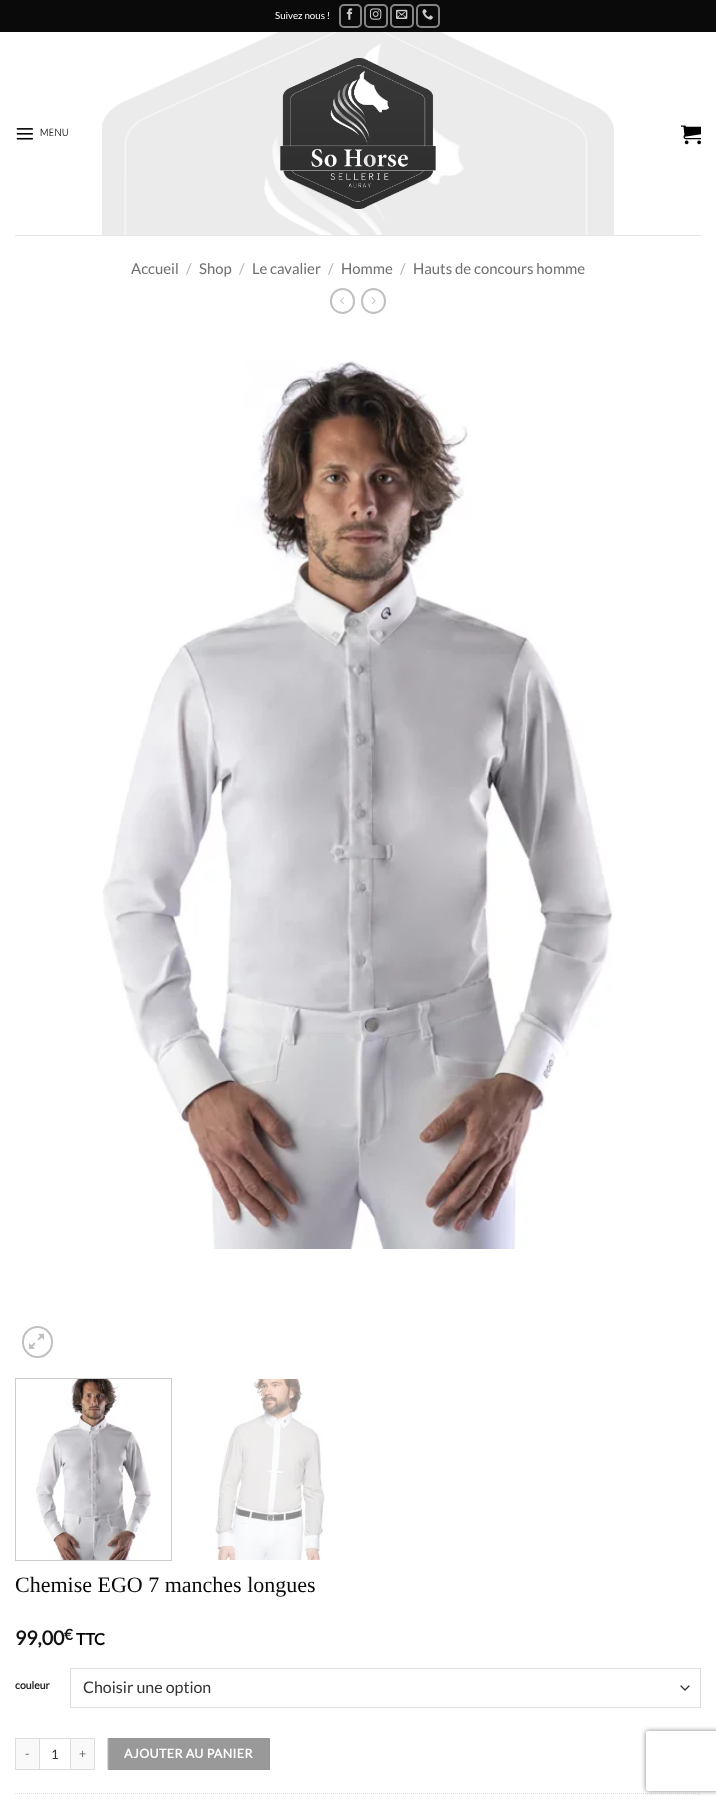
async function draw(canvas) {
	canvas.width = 716;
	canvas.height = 1805;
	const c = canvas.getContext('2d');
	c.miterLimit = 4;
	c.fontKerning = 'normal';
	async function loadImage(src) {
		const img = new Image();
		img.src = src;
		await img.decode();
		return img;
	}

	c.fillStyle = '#fff';
	c.fillRect(0, 0, 716, 1805);
	c.fillStyle = '#0a0a0a';
	c.fillRect(0, 0, 716, 32);
	c.font = '9.75px Lato';
	c.fillStyle = '#fff';
	c.fillText('Suivez nous !', 275, 19);
	c.beginPath();
	c.roundRect(340, 5, 21, 22, 4);
	c.strokeStyle = '#858585';
	c.lineWidth = 2;
	c.stroke();
	c.drawImage(await loadImage('img1.png'), 346, 8, 7, 12);
	c.beginPath();
	c.roundRect(365, 5, 22, 22, 4);
	c.stroke();
	c.drawImage(await loadImage('img2.png'), 370, 8, 12, 12);
	c.beginPath();
	c.roundRect(391, 5, 22, 22, 4);
	c.stroke();
	c.drawImage(await loadImage('img3.png'), 396, 9, 12, 10);
	c.beginPath();
	c.roundRect(417, 5, 22, 22, 4);
	c.stroke();
	c.drawImage(await loadImage('img4.png'), 422, 9, 11, 11);
	c.drawImage(await loadImage('img5.png'), 16, 128, 17, 12);
	c.letterSpacing = '0.5px';
	c.font = '10.5px Antic';
	c.fillStyle = '#000';
	c.fillText('MENU', 40, 136);
	c.drawImage(await loadImage('img8.png'), 102, 32, 512, 203);
	c.drawImage(await loadImage('img6.png'), 280, 58, 156, 151);
	c.drawImage(await loadImage('img7.png'), 681, 125, 20, 20);
	c.fillStyle = '#e6e6e6';
	c.fillRect(15, 235, 686, 1);
	c.letterSpacing = '0px';
	c.font = '14.9px Lato';
	c.fillStyle = '#6e6e6e';
	c.fillText('Accueil', 131, 274);
	c.fillStyle = '#b2b2b2';
	c.fillText('/', 186, 274);
	c.fillStyle = '#6e6e6e';
	c.fillText('Shop', 199, 274);
	c.fillStyle = '#b2b2b2';
	c.fillText('/', 239, 274);
	c.fillStyle = '#6e6e6e';
	c.fillText('Le cavalier', 252, 274);
	c.fillStyle = '#b2b2b2';
	c.fillText('/', 328, 274);
	c.fillStyle = '#6e6e6e';
	c.fillText('Homme', 341, 274);
	c.fillStyle = '#b2b2b2';
	c.fillText('/', 400, 274);
	c.fillStyle = '#6e6e6e';
	c.fillText('Hauts de concours homme', 413, 274);
	c.beginPath();
	c.roundRect(331, 289, 23, 24, 11.5);
	c.strokeStyle = '#c0c0c0';
	c.stroke();
	c.drawImage(await loadImage('img9.png'), 340, 297, 4, 7);
	c.beginPath();
	c.roundRect(362, 289, 23, 24, 11.5);
	c.stroke();
	c.drawImage(await loadImage('img10.png'), 371, 297, 5, 7);
	c.drawImage(await loadImage('img11.png'), 102, 360, 512, 889);
	c.beginPath();
	c.roundRect(23, 1327, 29, 30, 14.5);
	c.stroke();
	c.drawImage(await loadImage('img12.png'), 29, 1333, 16, 16);
	c.strokeStyle = '#ccc';
	c.lineWidth = 1;
	c.strokeRect(15.5, 1378.5, 156, 182);
	c.drawImage(await loadImage('img13.png'), 36, 1379, 115, 181);
	c.drawImage(await loadImage('img14.png'), 215, 1379, 110, 181);
	c.font = '22px Liberation Serif';
	c.fillStyle = '#0a0a0a';
	c.fillText('Chemise EGO 7 manches longues', 15, 1592);
	c.font = 'bold 19.5px Lato';
	c.fillStyle = '#111';
	c.fillText('99,00', 15, 1645);
	c.font = 'bold 15px Lato';
	c.fillText('€', 64, 1640);
	c.font = 'bold 16px Lato';
	c.fillStyle = '#000';
	c.fillText('TTC', 76, 1645);
	c.font = 'bold 10.5px Lato';
	c.fillStyle = '#222';
	c.fillText('couleur', 15, 1689);
	c.beginPath();
	c.moveTo(681, 1686);
	c.lineTo(685, 1690);
	c.lineTo(689, 1686);
	c.strokeStyle = '#333';
	c.lineWidth = 1.3;
	c.lineCap = 'round';
	c.lineJoin = 'round';
	c.stroke();
	c.strokeStyle = '#ddd';
	c.lineWidth = 1;
	c.lineJoin = 'miter';
	c.strokeRect(70.5, 1668.5, 630, 39);
	c.font = '16px Lato';
	c.fillStyle = '#333';
	c.fillText('Choisir une option', 83, 1693);
	for (const [x, y, w, h, color] of [
		[16, 1739, 23, 30, '#f9f9f9'],
		[15, 1738, 24, 1, '#ddd'],
		[15, 1769, 24, 1, '#ddd'],
		[15, 1738, 1, 32, '#ddd'],
	]) {
		c.fillStyle = color;
		c.fillRect(x, y, w, h);
	}
	c.letterSpacing = '0.4px';
	c.font = '12.5px Lato';
	c.fillStyle = '#666';
	c.fillText('-', 25, 1758);
	c.strokeRect(39.5, 1738.5, 31, 31);
	c.letterSpacing = '0px';
	c.font = '13px Lato';
	c.fillStyle = '#333';
	c.fillText('1', 51, 1759);
	for (const [x, y, w, h, color] of [
		[71, 1739, 23, 30, '#f9f9f9'],
		[71, 1738, 24, 1, '#ddd'],
		[94, 1738, 1, 32, '#ddd'],
		[71, 1769, 24, 1, '#ddd'],
	]) {
		c.fillStyle = color;
		c.fillRect(x, y, w, h);
	}
	c.letterSpacing = '0.4px';
	c.font = '12.5px Lato';
	c.fillStyle = '#666';
	c.fillText('+', 79, 1758);
	c.fillStyle = '#999';
	c.beginPath();
	c.rect(108.5, 1738.5, 161, 31);
	c.fill();
	c.strokeStyle = '#969696';
	c.stroke();
	c.font = 'bold 12.5px Lato';
	c.fillStyle = '#fff';
	c.fillText('AJOUTER AU PANIER', 124, 1758);
	c.beginPath();
	c.moveTo(15, 1793.5);
	c.lineTo(701, 1793.5);
	c.strokeStyle = '#ddd';
	c.lineCap = 'butt';
	c.setLineDash([1, 1]);
	c.stroke();
	c.save();
	c.beginPath();
	c.moveTo(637, 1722);
	c.lineTo(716, 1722);
	c.lineTo(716, 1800);
	c.lineTo(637, 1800);
	c.closePath();
	c.moveTo(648, 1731);
	c.lineTo(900, 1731);
	c.bezierCurveTo(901, 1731, 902, 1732, 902, 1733);
	c.lineTo(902, 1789);
	c.bezierCurveTo(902, 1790, 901, 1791, 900, 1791);
	c.lineTo(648, 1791);
	c.bezierCurveTo(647, 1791, 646, 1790, 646, 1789);
	c.lineTo(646, 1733);
	c.bezierCurveTo(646, 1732, 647, 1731, 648, 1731);
	c.closePath();
	c.clip('evenodd');
	c.fillStyle = '#808080';
	c.filter = 'blur(2.5px)';
	c.beginPath();
	c.roundRect(646, 1731, 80, 60, 2);
	c.fill();
	c.filter = 'none';
	c.restore();
}

draw(document.querySelector('canvas'));
